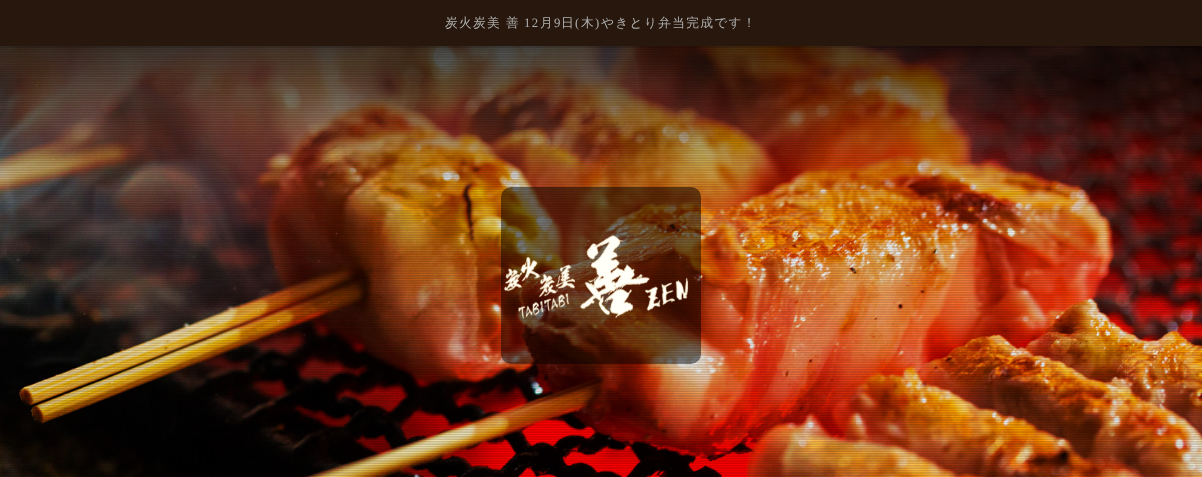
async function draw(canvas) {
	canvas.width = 1202;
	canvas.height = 477;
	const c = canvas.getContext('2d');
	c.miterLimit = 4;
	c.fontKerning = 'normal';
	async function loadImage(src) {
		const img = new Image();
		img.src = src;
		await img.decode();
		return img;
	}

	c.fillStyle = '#fff';
	c.fillRect(0, 0, 1202, 477);
	c.drawImage(await loadImage('img1.png'), 0, 46, 1202, 431);
	c.fillStyle = '#0000004d';
	c.filter = 'blur(1.5px)';
	c.beginPath();
	c.rect(0, 1, 1202, 46);
	c.fill();
	c.filter = 'none';
	c.fillStyle = '#27170c';
	c.fillRect(0, 0, 1202, 46);
	c.letterSpacing = '1.25px';
	c.font = '500 12.75px WenQuanYi Zen Hei';
	c.fillStyle = '#afafaf';
	c.fillText('炭火炭美 善', 445, 27);
	c.font = '12.75px Liberation Serif';
	c.fillText('12', 524, 27);
	c.font = '500 12.75px WenQuanYi Zen Hei';
	c.fillText('月', 540, 27);
	c.font = '12.75px Liberation Serif';
	c.fillText('9', 554, 27);
	c.font = '500 12.75px WenQuanYi Zen Hei';
	c.fillText('日', 561, 27);
	c.font = '12.75px Liberation Serif';
	c.fillText('(', 575, 27);
	c.font = '500 12.75px WenQuanYi Zen Hei';
	c.fillText('木', 581, 27);
	c.font = '12.75px Liberation Serif';
	c.fillText(')', 595, 27);
	c.font = '500 12.75px WenQuanYi Zen Hei';
	c.fillText('やきとり弁当完成です！', 601, 27);
	c.fillStyle = '#00000080';
	c.beginPath();
	c.roundRect(501, 187, 200, 177, 10);
	c.fill();
	c.drawImage(await loadImage('img2.png'), 504, 235, 185, 84);
}

draw(document.querySelector('canvas'));
